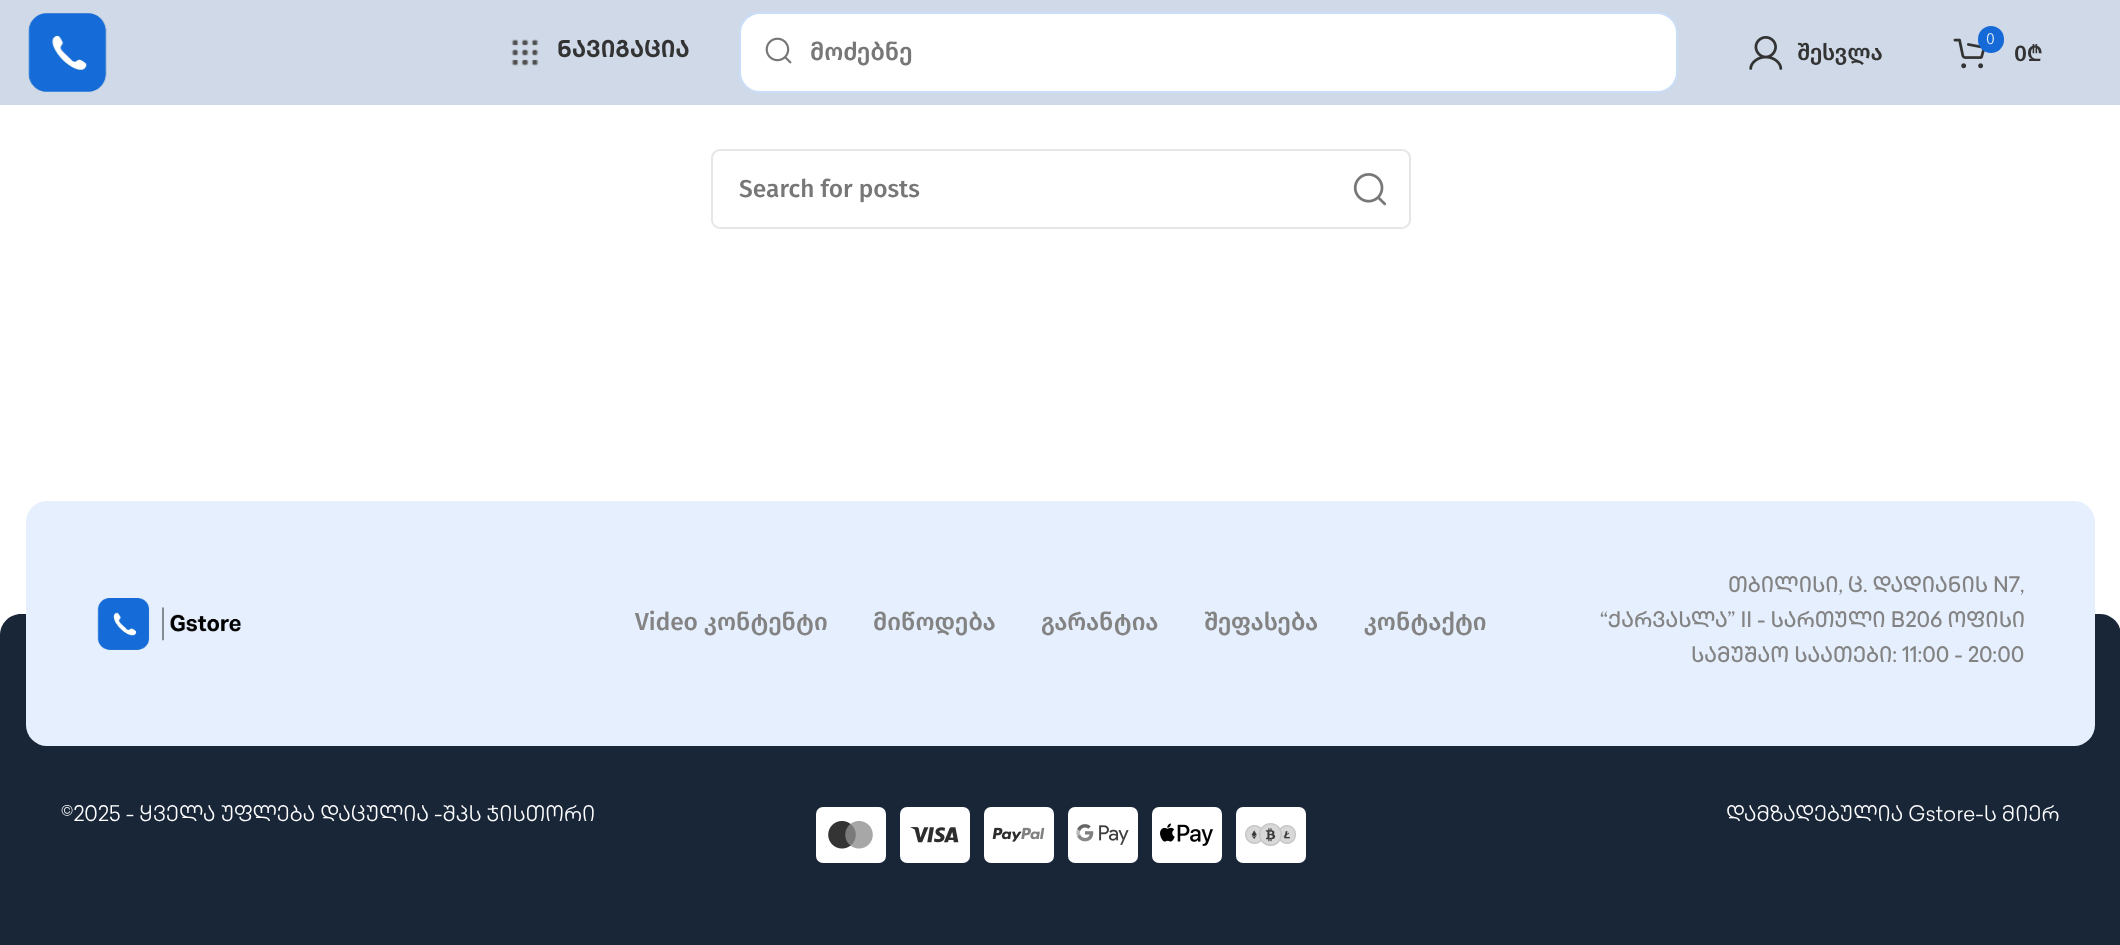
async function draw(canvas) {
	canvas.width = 2120;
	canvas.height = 945;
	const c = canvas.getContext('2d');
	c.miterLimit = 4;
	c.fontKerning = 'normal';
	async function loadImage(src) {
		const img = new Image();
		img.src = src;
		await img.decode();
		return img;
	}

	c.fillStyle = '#fff';
	c.fillRect(0, 0, 2120, 945);
	c.fillStyle = '#cfd9e7';
	c.fillRect(0, 0, 2120, 105);
	c.drawImage(await loadImage('img1.png'), 28, 13, 79, 79);
	c.drawImage(await loadImage('img2.png'), 511, 39, 28, 27);
	c.font = 'bold 22.75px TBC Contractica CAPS';
	c.fillStyle = '#333';
	c.fillText('ნავიგაცია', 557, 57);
	c.fillStyle = '#fff';
	c.beginPath();
	c.roundRect(740, 13, 937, 79, 20);
	c.fill();
	c.strokeStyle = '#cbdef8';
	c.lineWidth = 2;
	c.stroke();
	c.drawImage(await loadImage('img3.png'), 765, 37, 27, 27);
	c.font = '500 24.5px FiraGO';
	c.fillStyle = '#777';
	c.fillText('მოძებნე', 810, 60);
	c.drawImage(await loadImage('img4.png'), 1749, 36, 34, 34);
	c.font = '500 22.75px FiraGO';
	c.fillStyle = '#333';
	c.fillText('შესვლა', 1797, 60);
	c.drawImage(await loadImage('img5.png'), 1953, 38, 32, 31);
	c.fillStyle = '#166ad7';
	c.beginPath();
	c.roundRect(1978, 26, 26, 27, 13);
	c.fill();
	c.font = '300 16px FiraGO';
	c.fillStyle = '#fff';
	c.fillText('0', 1986, 44);
	c.font = '500 22.75px FiraGO';
	c.fillStyle = '#333';
	c.fillText('0₾', 2014, 61);
	c.beginPath();
	c.roundRect(712, 150, 698, 78, 8);
	c.strokeStyle = '#e6e6e6';
	c.stroke();
	c.font = '500 24.5px FiraGO';
	c.fillStyle = '#777';
	c.fillText('Search for posts', 739, 197);
	c.drawImage(await loadImage('img6.png'), 1353, 173, 34, 33);
	c.fillStyle = '#182638';
	c.beginPath();
	c.moveTo(21, 614);
	c.lineTo(2100, 614);
	c.bezierCurveTo(2111.5, 614, 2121, 623.5, 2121, 635);
	c.lineTo(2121, 945);
	c.lineTo(0, 945);
	c.lineTo(0, 635);
	c.bezierCurveTo(0, 623.5, 9.5, 614, 21, 614);
	c.closePath();
	c.fill();
	c.fillStyle = '#e6effd';
	c.beginPath();
	c.roundRect(26, 501, 2069, 245, 21);
	c.fill();
	c.drawImage(await loadImage('img7.png'), 97, 598, 144, 52);
	c.fillStyle = '#838383';
	for (const [text, x, y] of [
		['Video კონტენტი', 635, 630],
		['მიწოდება', 873, 630],
		['გარანტია', 1041, 630],
		['შეფასება', 1204, 630],
		['კონტაქტი', 1364, 630],
	]) {
		c.fillText(text, x, y);
	}
	c.font = '500 21px TBC Contractica CAPS';
	for (const [text, x, y] of [
		['თბილისი, ც. დადიანის N7,', 1728, 592],
		['“ქარვასლა” II - სართული B206 ოფისი', 1600, 627],
		['სამუშაო საათები: 11:00 - 20:00', 1691, 662],
	]) {
		c.fillText(text, x, y);
	}
	c.font = '21px TBC Contractica CAPS';
	c.fillStyle = '#fff';
	c.fillText('©2025 - ყველა უფლება დაცულია -შპს ჯისთორი', 61, 821);
	c.beginPath();
	c.roundRect(816, 807, 70, 56, 7);
	c.fill();
	c.drawImage(await loadImage('img8.png'), 828, 821, 45, 28);
	c.beginPath();
	c.roundRect(900, 807, 70, 56, 7);
	c.fill();
	c.drawImage(await loadImage('img9.png'), 910, 827, 49, 16);
	c.beginPath();
	c.roundRect(984, 807, 70, 56, 7);
	c.fill();
	c.drawImage(await loadImage('img10.png'), 992, 827, 53, 15);
	c.beginPath();
	c.roundRect(1068, 807, 70, 56, 7);
	c.fill();
	c.drawImage(await loadImage('img11.png'), 1076, 824, 53, 21);
	c.beginPath();
	c.roundRect(1152, 807, 70, 56, 7);
	c.fill();
	c.drawImage(await loadImage('img12.png'), 1160, 823, 53, 23);
	c.beginPath();
	c.roundRect(1236, 807, 70, 56, 7);
	c.fill();
	c.drawImage(await loadImage('img13.png'), 1245, 823, 51, 23);
	c.fillText('დამზადებულია Gstore-ს მიერ', 1726, 821);
}

draw(document.querySelector('canvas'));
